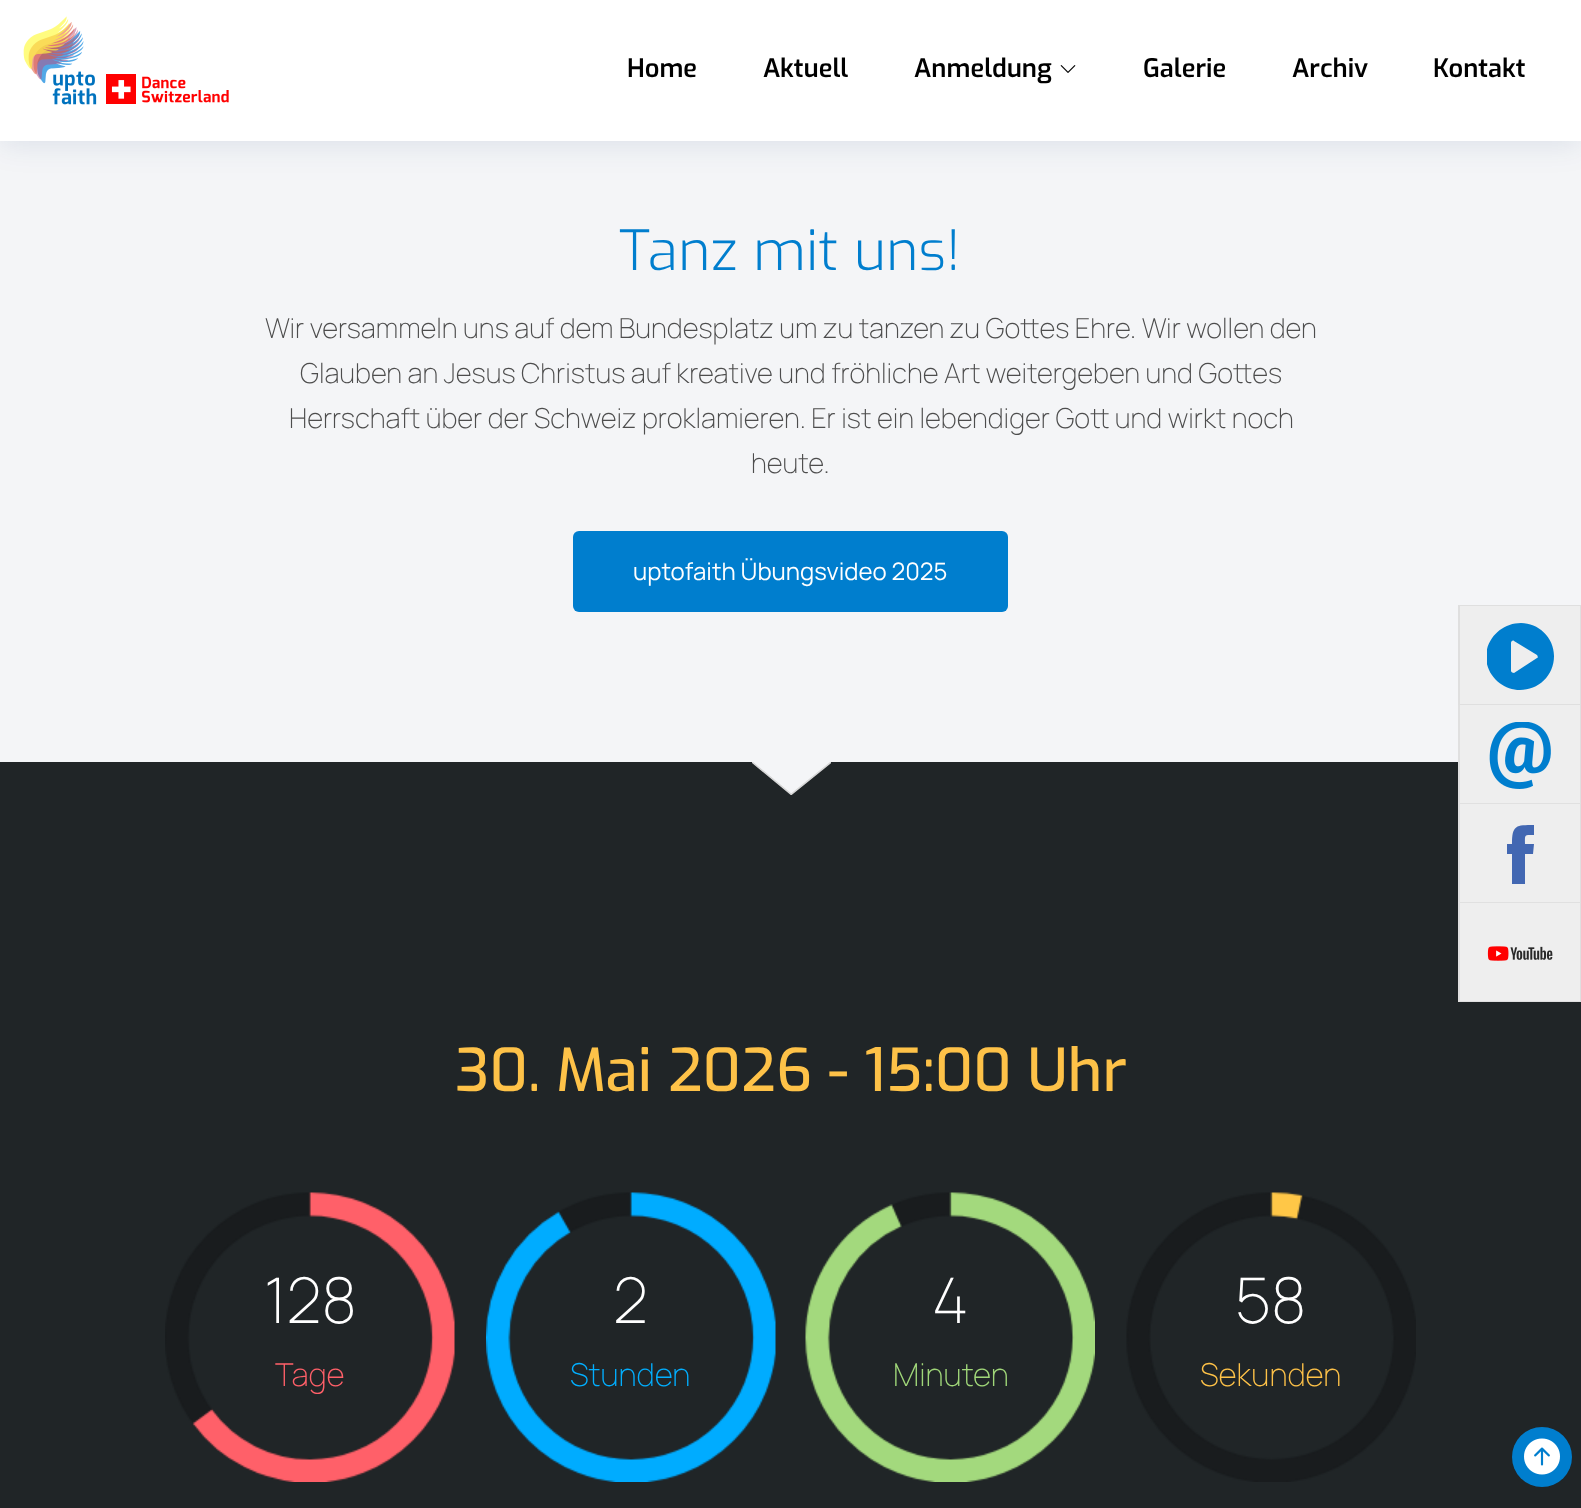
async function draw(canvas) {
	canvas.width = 1581;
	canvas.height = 1508;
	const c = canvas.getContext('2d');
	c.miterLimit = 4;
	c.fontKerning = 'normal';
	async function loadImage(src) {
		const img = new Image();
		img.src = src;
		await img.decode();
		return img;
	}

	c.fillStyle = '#f4f5f7';
	c.fillRect(0, 0, 1581, 1508);
	c.fillStyle = '#0129701a';
	c.filter = 'blur(15px)';
	c.beginPath();
	c.rect(0, 3, 1581, 141);
	c.fill();
	c.filter = 'none';
	c.fillStyle = '#fff';
	c.fillRect(0, 0, 1581, 141);
	c.drawImage(await loadImage('img1.png'), 23, 16, 206, 89);
	c.font = '600 25.5px Exo';
	c.fillStyle = '#000';
	for (const [text, x, y] of [
		['Home', 627, 77],
		['Aktuell', 763, 77],
		['Anmeldung', 914, 77],
	]) {
		c.fillText(text, x, y);
	}
	c.drawImage(await loadImage('img2.png'), 1060, 65, 16, 8);
	for (const [text, x, y] of [
		['Galerie', 1143, 77],
		['Archiv', 1292, 77],
		['Kontakt', 1433, 77],
	]) {
		c.fillText(text, x, y);
	}
	c.font = '300 55.5px Exo';
	c.fillStyle = '#007ece';
	c.fillText('Tanz mit uns!', 619, 270);
	c.font = '200 27.5px Manrope';
	c.fillStyle = '#4d4d4d';
	for (const [text, x, y] of [
		['Wir versammeln uns auf dem Bundesplatz um zu tanzen zu Gottes Ehre. Wir wollen den', 265, 338],
		['Glauben an Jesus Christus auf kreative und fröhliche Art weitergeben und Gottes', 300, 383],
		['Herrschaft über der Schweiz proklamieren. Er ist ein lebendiger Gott und wirkt noch', 289, 428],
		['heute.', 751, 473],
	]) {
		c.fillText(text, x, y);
	}
	c.fillStyle = '#007ece';
	c.beginPath();
	c.roundRect(573, 531, 435, 81, 6);
	c.fill();
	c.font = '24px Manrope';
	c.fillStyle = '#fff';
	c.fillText('uptofaith Übungsvideo 2025', 633, 580);
	c.strokeStyle = '#dfdfdf';
	c.lineWidth = 2;
	c.strokeRect(1459, 606, 121, 98);
	c.fillStyle = '#eee';
	c.fillRect(1460, 606, 120, 98);
	c.save();
	c.beginPath();
	c.rect(1487, 623, 67, 67);
	c.clip();
	c.fillStyle = '#007ece';
	c.beginPath();
	c.moveTo(1486, 656);
	c.bezierCurveTo(1486, 676, 1503, 690, 1520, 690);
	c.bezierCurveTo(1538, 690, 1554, 676, 1554, 656);
	c.bezierCurveTo(1554, 637, 1538, 623, 1521, 623);
	c.bezierCurveTo(1503, 623, 1487, 637, 1486, 656);
	c.closePath();
	c.moveTo(1514, 641);
	c.lineTo(1537, 655);
	c.bezierCurveTo(1538, 656, 1538, 658, 1537, 658);
	c.lineTo(1514, 673);
	c.bezierCurveTo(1513, 673, 1511, 672, 1511, 671);
	c.lineTo(1511, 643);
	c.bezierCurveTo(1511, 641, 1513, 640, 1514, 641);
	c.closePath();
	c.fill();
	c.restore();
	c.fillStyle = '#202527';
	c.fillRect(0, 762, 1581, 746);
	c.fillStyle = '#fff';
	c.fillRect(1458, 705, 123, 297);
	c.fillStyle = '#dfdfdf';
	c.beginPath();
	c.moveTo(1581, 705);
	c.lineTo(1581, 804);
	c.lineTo(1580, 802);
	c.lineTo(1580, 705);
	c.closePath();
	c.fill();
	c.fillStyle = '#0000001f';
	c.beginPath();
	c.moveTo(1581, 804);
	c.lineTo(1458, 804);
	c.lineTo(1460, 802);
	c.lineTo(1580, 802);
	c.closePath();
	c.fill();
	c.beginPath();
	c.moveTo(1458, 804);
	c.lineTo(1458, 705);
	c.lineTo(1460, 705);
	c.lineTo(1460, 802);
	c.closePath();
	c.fill();
	c.fillStyle = '#eee';
	c.fillRect(1460, 705, 120, 98);
	c.drawImage(await loadImage('img3.png'), 1489, 722, 62, 67);
	c.fillStyle = '#dfdfdf';
	c.beginPath();
	c.moveTo(1581, 804);
	c.lineTo(1581, 903);
	c.lineTo(1580, 902);
	c.lineTo(1580, 804);
	c.closePath();
	c.fill();
	c.fillStyle = '#0000001f';
	c.beginPath();
	c.moveTo(1581, 903);
	c.lineTo(1458, 903);
	c.lineTo(1460, 902);
	c.lineTo(1580, 902);
	c.closePath();
	c.fill();
	c.beginPath();
	c.moveTo(1458, 903);
	c.lineTo(1458, 804);
	c.lineTo(1460, 804);
	c.lineTo(1460, 902);
	c.closePath();
	c.fill();
	c.fillStyle = '#eee';
	c.fillRect(1460, 804, 120, 98);
	c.fillStyle = '#4267b2';
	c.beginPath();
	c.moveTo(1534, 844);
	c.lineTo(1525, 844);
	c.bezierCurveTo(1525, 834, 1524, 835, 1534, 835);
	c.lineTo(1534, 825);
	c.bezierCurveTo(1516, 825, 1512, 825, 1512, 844);
	c.lineTo(1507, 844);
	c.lineTo(1507, 854);
	c.lineTo(1512, 854);
	c.lineTo(1512, 884);
	c.lineTo(1525, 884);
	c.lineTo(1525, 854);
	c.lineTo(1533, 854);
	c.closePath();
	c.fill();
	c.fillStyle = '#dfdfdf';
	c.beginPath();
	c.moveTo(1581, 903);
	c.lineTo(1581, 1002);
	c.lineTo(1580, 1000);
	c.lineTo(1580, 903);
	c.closePath();
	c.fill();
	c.fillStyle = '#0000001f';
	c.beginPath();
	c.moveTo(1581, 1002);
	c.lineTo(1458, 1002);
	c.lineTo(1460, 1000);
	c.lineTo(1580, 1000);
	c.closePath();
	c.fill();
	c.beginPath();
	c.moveTo(1458, 1002);
	c.lineTo(1458, 903);
	c.lineTo(1460, 903);
	c.lineTo(1460, 1000);
	c.closePath();
	c.fill();
	c.fillStyle = '#eee';
	c.fillRect(1460, 903, 120, 98);
	c.drawImage(await loadImage('img4.png'), 1487, 946, 66, 15);
	c.drawImage(await loadImage('img5.png'), 752, 762, 79, 33);
	c.font = '500 59px Exo';
	c.fillStyle = '#fec248';
	c.fillText('30. Mai 2026 - 15:00 Uhr', 455, 1091);
	c.drawImage(await loadImage('img6.png'), 165, 1192, 290, 290);
	c.font = '200 63px Manrope';
	c.fillStyle = '#fff';
	c.fillText('128', 264, 1323);
	c.font = '200 31.5px Manrope';
	c.fillStyle = '#ff6069';
	c.fillText('Tage', 275, 1386);
	c.drawImage(await loadImage('img7.png'), 486, 1192, 290, 290);
	c.font = '200 63px Manrope';
	c.fillStyle = '#fff';
	c.fillText('2', 613, 1323);
	c.font = '200 31.5px Manrope';
	c.fillStyle = '#02afff';
	c.fillText('Stunden', 570, 1386);
	c.drawImage(await loadImage('img8.png'), 805, 1192, 290, 290);
	c.font = '200 63px Manrope';
	c.fillStyle = '#fff';
	c.fillText('4', 932, 1323);
	c.font = '200 31.5px Manrope';
	c.fillStyle = '#a0d779';
	c.fillText('Minuten', 893, 1386);
	c.drawImage(await loadImage('img9.png'), 1126, 1192, 290, 290);
	c.font = '200 63px Manrope';
	c.fillStyle = '#fff';
	c.fillText('58', 1235, 1323);
	c.font = '200 31.5px Manrope';
	c.fillStyle = '#fec248';
	c.fillText('Sekunden', 1200, 1386);
	c.fillStyle = '#007ece';
	c.beginPath();
	c.arc(1542, 1457, 30, 0, 2 * Math.PI);
	c.fill();
	c.drawImage(await loadImage('img10.png'), 1524, 1438, 36, 37);
}

draw(document.querySelector('canvas'));
